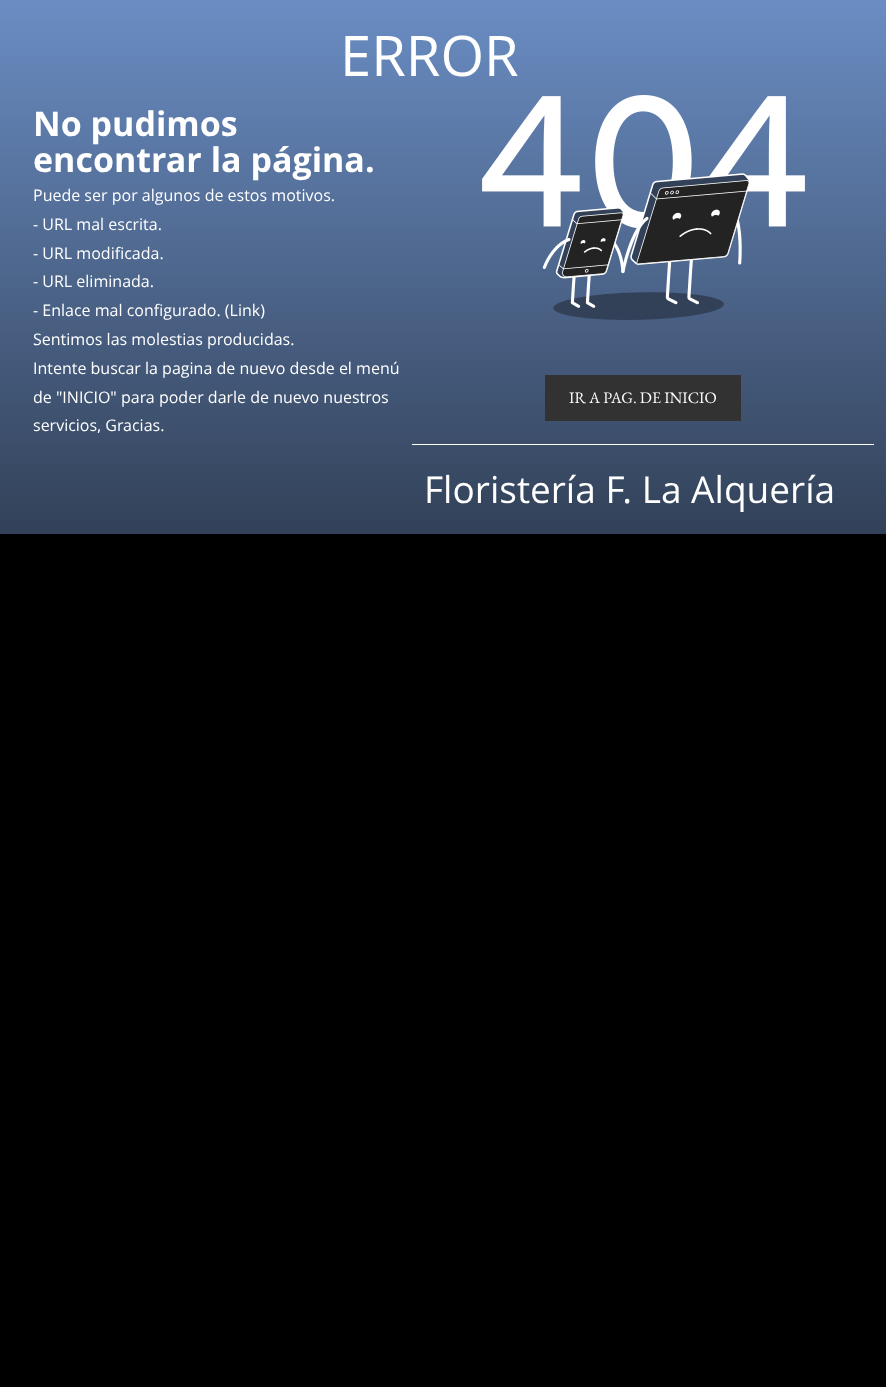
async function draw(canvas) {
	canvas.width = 886;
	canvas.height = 1387;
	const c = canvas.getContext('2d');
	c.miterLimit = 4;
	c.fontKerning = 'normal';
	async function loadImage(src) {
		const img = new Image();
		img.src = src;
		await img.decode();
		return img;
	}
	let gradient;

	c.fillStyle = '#000';
	c.fillRect(0, 0, 886, 1387);
	gradient = c.createLinearGradient(490, 0, 490, 534);
	gradient.addColorStop(0, '#6a8dc3');
	gradient.addColorStop(1, '#324158');
	c.fillStyle = gradient;
	c.fillRect(0, 0, 886, 534);
	c.font = '56px Open Sans';
	c.fillStyle = '#fff';
	c.fillText('ERROR', 340, 76);
	c.font = 'bold 34px Open Sans';
	c.fillText('No pudimos', 33, 136);
	c.fillText('encontrar la página.', 33, 172);
	c.font = '16px Open Sans';
	for (const [text, x, y] of [
		['Puede ser por algunos de estos motivos.', 33, 201],
		['- URL mal escrita.', 33, 230],
		['- URL modificada.', 33, 259],
		['- URL eliminada.', 33, 287],
		['- Enlace mal configurado. (Link)', 33, 316],
		['Sentimos las molestias producidas.', 33, 345],
		['Intente buscar la pagina de nuevo desde el menú', 33, 374],
		['de "INICIO" para poder darle de nuevo nuestros', 33, 403],
		['servicios, Gracias.', 33, 431],
	]) {
		c.fillText(text, x, y);
	}
	c.drawImage(await loadImage('img1.png'), 482, 95, 323, 225);
	c.fillStyle = '#323232';
	c.fillRect(545, 375, 196, 46);
	c.font = '16px EB Garamond';
	c.fillStyle = '#fff';
	c.fillText('IR A PAG. DE INICIO', 569, 403);
	c.fillRect(412, 444, 462, 1);
	c.font = '37px Open Sans';
	c.fillText('Floristería F. La Alquería', 424, 503);
}

draw(document.querySelector('canvas'));
